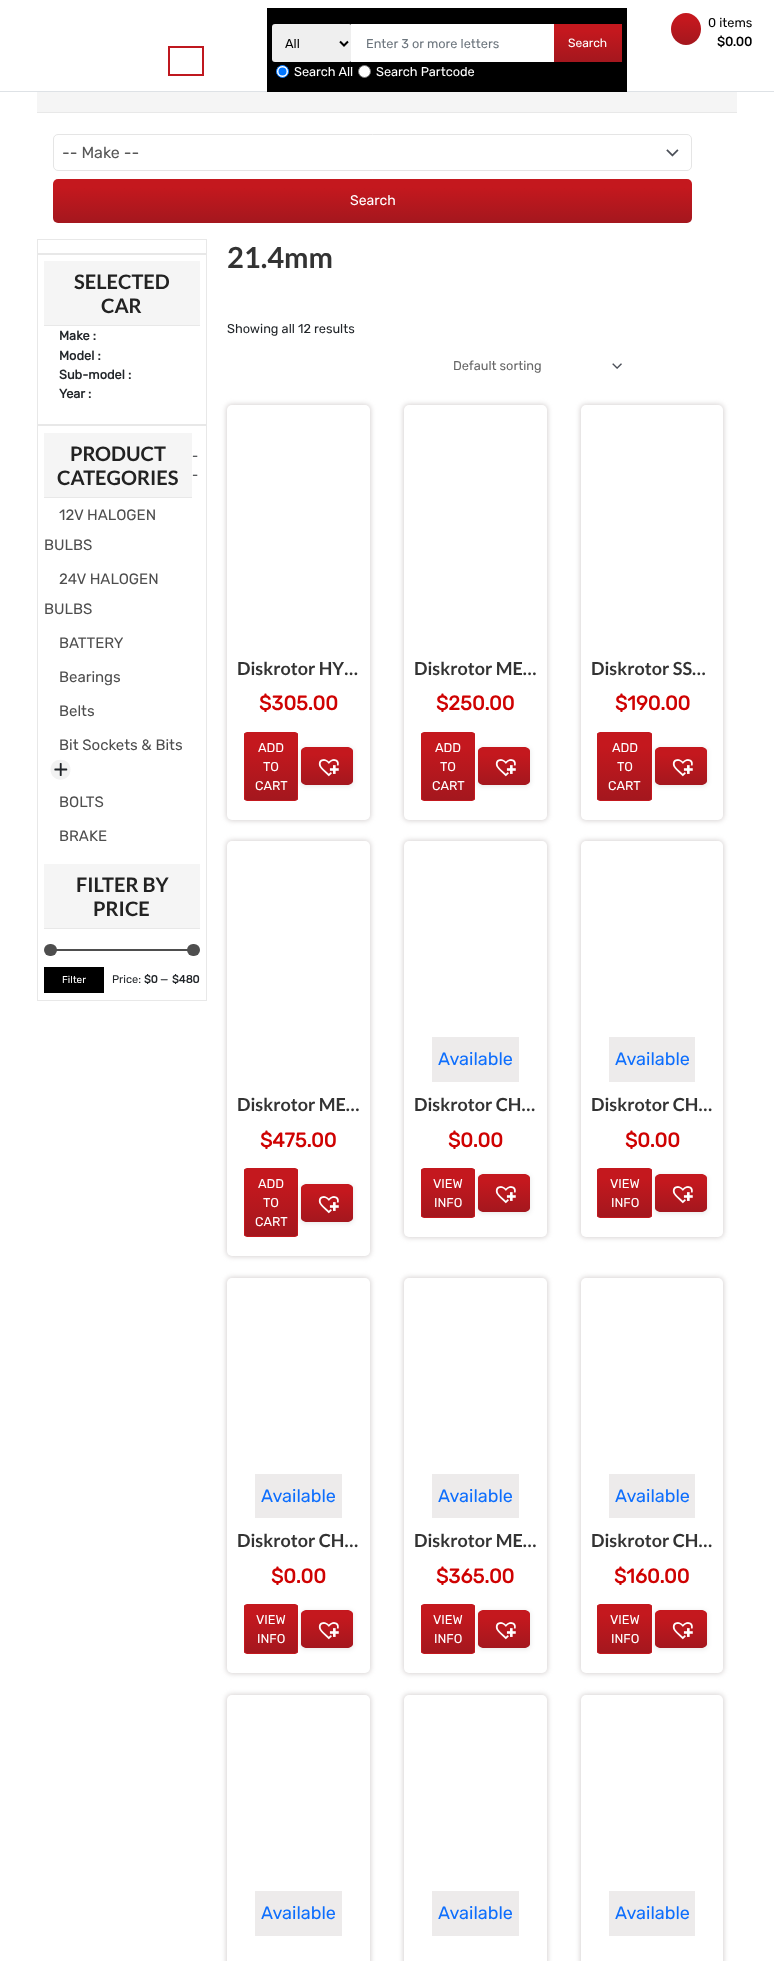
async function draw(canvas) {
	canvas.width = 774;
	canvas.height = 1961;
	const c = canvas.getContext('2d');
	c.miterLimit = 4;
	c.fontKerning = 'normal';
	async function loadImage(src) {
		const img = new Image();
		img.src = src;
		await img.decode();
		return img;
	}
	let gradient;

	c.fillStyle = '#fff';
	c.fillRect(0, 0, 774, 1961);
	c.fillStyle = '#dee2e6';
	c.fillRect(0, 91, 774, 1);
	gradient = c.createLinearGradient(686, 13, 686, 45);
	gradient.addColorStop(0, '#c4181e');
	gradient.addColorStop(0.19, '#c4181e');
	gradient.addColorStop(1, '#a4171e');
	c.fillStyle = gradient;
	c.beginPath();
	c.ellipse(686, 29, 15, 16, 0, 0, 2 * Math.PI);
	c.fill();
	c.font = '300 12.75px Rubik';
	c.fillStyle = '#000';
	c.fillText('0 items', 708, 27);
	c.font = 'bold 12.75px Rubik';
	c.fillText('$0.00', 717, 46);
	c.strokeStyle = '#bf181f';
	c.lineWidth = 2;
	c.strokeRect(169, 47, 34, 28);
	c.fillRect(267, 8, 360, 84);
	c.fillStyle = '#efefef';
	c.beginPath();
	c.roundRect(272, 24, 80, 38, 3);
	c.fill();
	c.beginPath();
	c.moveTo(340, 41.5);
	c.lineTo(344, 45.5);
	c.lineTo(348, 41.5);
	c.strokeStyle = '#000';
	c.stroke();
	c.font = '300 12.75px Rubik';
	c.fillStyle = '#000';
	c.fillText('All', 285, 48);
	c.fillStyle = '#fff';
	c.fillRect(351, 24, 203, 38);
	c.fillStyle = '#6c757d';
	c.fillText('Enter 3 or more letters', 366, 48);
	gradient = c.createLinearGradient(588, 24, 588, 62);
	gradient.addColorStop(0, '#c4181e');
	gradient.addColorStop(0.19, '#c4181e');
	gradient.addColorStop(1, '#a4171e');
	c.fillStyle = gradient;
	c.fillRect(554, 24, 68, 38);
	c.font = '300 12px Rubik';
	c.fillStyle = '#fff';
	c.fillText('Search', 568, 47);
	c.beginPath();
	c.arc(282.5, 71.5, 6, 0, 2 * Math.PI);
	c.fill();
	c.strokeStyle = '#0075ff';
	c.lineWidth = 1;
	c.stroke();
	c.fillStyle = '#0075ff';
	c.beginPath();
	c.arc(282.5, 71.5, 4, 0, 2 * Math.PI);
	c.fill();
	c.font = '300 12.75px Rubik';
	c.fillStyle = '#fff';
	c.fillText('Search All', 294, 76);
	c.beginPath();
	c.arc(364.5, 71.5, 6, 0, 2 * Math.PI);
	c.fill();
	c.strokeStyle = '#767676';
	c.stroke();
	c.fillText('Search Partcode', 376, 76);
	c.fillStyle = '#f5f5f5';
	c.fillRect(37, 92, 700, 20);
	c.fillStyle = '#e8e8e8';
	c.fillRect(37, 112, 700, 1);
	c.drawImage(await loadImage('img1.png'), 666, 149, 13, 8);
	c.beginPath();
	c.roundRect(53.5, 134.5, 638, 36, 4.5);
	c.strokeStyle = '#e5e5e5';
	c.stroke();
	c.font = '300 16px Rubik';
	c.fillStyle = '#575757';
	c.fillText('-- Make --', 62, 158);
	gradient = c.createLinearGradient(373, 179, 373, 223);
	gradient.addColorStop(0, '#c4181e');
	gradient.addColorStop(0.19, '#c4181e');
	gradient.addColorStop(1, '#a4171e');
	c.fillStyle = gradient;
	c.beginPath();
	c.roundRect(53, 179, 639, 44, 5);
	c.fill();
	c.font = '300 14px Rubik';
	c.fillStyle = '#fff';
	c.fillText('Search', 350, 205);
	c.strokeStyle = '#e8e8e8';
	c.strokeRect(37.5, 239.5, 169, 14);
	c.strokeRect(37.5, 254.5, 169, 170);
	c.fillStyle = '#f5f5f5';
	c.fillRect(44, 261, 156, 64);
	c.fillStyle = '#e8e8e8';
	c.fillRect(44, 325, 156, 1);
	c.font = 'bold 20px Lato';
	c.fillStyle = '#222';
	c.fillText('SELECTED', 74, 289);
	c.fillText('CAR', 101, 313);
	c.font = 'bold 12.75px Rubik';
	c.fillStyle = '#212529';
	for (const [text, x, y] of [
		['Make :', 59, 340],
		['Model :', 59, 360],
		['Sub-model :', 59, 379],
		['Year :', 59, 398],
	]) {
		c.fillText(text, x, y);
	}
	c.strokeRect(37.5, 425.5, 169, 575);
	c.fillStyle = '#f5f5f5';
	c.fillRect(44, 433, 148, 64);
	c.fillStyle = '#e8e8e8';
	c.fillRect(44, 497, 148, 1);
	c.font = 'bold 20px Lato';
	c.fillStyle = '#222';
	c.fillText('PRODUCT', 70, 461);
	c.fillText('CATEGORIES', 57, 485);
	c.font = '300 12.75px Rubik';
	c.fillStyle = '#212529';
	c.fillText('-', 192, 460);
	c.fillText('-', 192, 479);
	c.font = '300 15px Rubik';
	c.fillStyle = '#4e4e4e';
	for (const [text, x, y] of [
		['12V HALOGEN', 59, 520],
		['BULBS', 44, 550],
		['24V HALOGEN', 59, 584],
		['BULBS', 44, 614],
		['BATTERY', 59, 648],
		['Bearings', 59, 682],
		['Belts', 59, 716],
		['Bit Sockets & Bits', 59, 750],
	]) {
		c.fillText(text, x, y);
	}
	c.fillStyle = '#f2f2f2';
	c.beginPath();
	c.moveTo(50.5, 769.5);
	c.bezierCurveTo(50.5, 756.5, 70.5, 756.5, 70.5, 769.5);
	c.bezierCurveTo(70.5, 783, 50.5, 783, 50.5, 769.5);
	c.closePath();
	c.fill();
	c.font = '300 24px Rubik';
	c.fillStyle = '#212529';
	c.save();
	c.translate(68, 777);
	c.rotate(-90 * Math.PI / 180);
	c.fillText('+', 0, 0);
	c.restore();
	c.font = '300 15px Rubik';
	c.fillStyle = '#4e4e4e';
	c.fillText('BOLTS', 59, 807);
	c.fillText('BRAKE', 59, 841);
	c.fillStyle = '#f5f5f5';
	c.fillRect(44, 864, 156, 64);
	c.fillStyle = '#e8e8e8';
	c.fillRect(44, 928, 156, 1);
	c.font = 'bold 20px Lato';
	c.fillStyle = '#222';
	c.fillText('FILTER BY', 76, 892);
	c.fillText('PRICE', 93, 916);
	c.fillStyle = '#4e4e4e';
	c.fillRect(50, 949, 143, 2);
	c.beginPath();
	c.roundRect(44, 944, 13, 12, 6);
	c.fill();
	c.beginPath();
	c.roundRect(187, 944, 13, 12, 6);
	c.fill();
	c.fillStyle = '#000';
	c.fillRect(44, 967, 60, 26);
	c.font = '300 10px Rubik';
	c.fillStyle = '#fff';
	c.fillText('Filter', 62, 983);
	c.font = '300 11px Rubik';
	c.fillStyle = '#212529';
	c.fillText('Price:', 112, 983);
	c.font = 'bold 11px Rubik';
	c.fillText('$0', 144, 983);
	c.font = '300 11px Rubik';
	c.fillText('—', 160, 983);
	c.font = 'bold 11px Rubik';
	c.fillText('$480', 172, 983);
	c.font = 'bold 29px Lato';
	c.fillStyle = '#333';
	c.fillText('21.4mm', 227, 268);
	c.font = '300 12.75px Rubik';
	c.fillStyle = '#212529';
	c.fillText('Showing all 12 results', 227, 333);
	c.drawImage(await loadImage('img2.png'), 612, 363, 10, 6);
	c.fillStyle = '#666';
	c.fillText('Default sorting', 453, 370);
	c.fillStyle = '#b1aaaa80';
	c.filter = 'blur(2.5px)';
	c.beginPath();
	c.roundRect(226, 404, 145, 417, 6);
	c.fill();
	c.filter = 'none';
	c.fillStyle = '#fff';
	c.beginPath();
	c.roundRect(227, 405, 143, 415, 5);
	c.fill();
	c.font = 'bold 18px Lato';
	c.fillStyle = '#333';
	c.fillText('Diskrotor HY…', 237, 675);
	c.font = 'bold 20px Rubik';
	c.fillStyle = '#cf0202';
	c.fillText('$305.00', 259, 710);
	c.save();
	c.beginPath();
	c.roundRect(244, 732, 54, 69, 3);
	c.clip();
	gradient = c.createLinearGradient(271, 733, 271, 800);
	gradient.addColorStop(0, '#c4181e');
	gradient.addColorStop(0.19, '#c4181e');
	gradient.addColorStop(1, '#a4171e');
	c.fillStyle = gradient;
	c.fillRect(244, 733, 54, 67);
	c.restore();
	c.beginPath();
	c.roundRect(244.5, 732.5, 53, 68, 2.5);
	c.strokeStyle = '#c3181e';
	c.stroke();
	c.font = '300 12.75px Rubik';
	c.fillStyle = '#fff';
	for (const [text, x, y] of [
		['ADD', 258, 752],
		['TO', 263, 771],
		['CART', 255, 790],
	]) {
		c.fillText(text, x, y);
	}
	c.fillStyle = '#0000001a';
	c.filter = 'blur(2.5px)';
	c.beginPath();
	c.roundRect(301, 748, 52, 38, 4);
	c.fill();
	c.filter = 'none';
	gradient = c.createLinearGradient(327, 747, 327, 785);
	gradient.addColorStop(0, '#c4181e');
	gradient.addColorStop(0.19, '#c4181e');
	gradient.addColorStop(1, '#a4171e');
	c.fillStyle = gradient;
	c.beginPath();
	c.moveTo(307, 747);
	c.lineTo(347, 747);
	c.bezierCurveTo(350, 747, 353, 749, 353, 751);
	c.lineTo(353, 781);
	c.bezierCurveTo(353, 783, 350, 785, 347, 785);
	c.lineTo(307, 785);
	c.bezierCurveTo(304, 785, 301, 783, 301, 781);
	c.lineTo(301, 751);
	c.bezierCurveTo(301, 749, 304, 747, 307, 747);
	c.closePath();
	c.fill();
	c.drawImage(await loadImage('img3.png'), 318, 759, 21, 18);
	c.fillStyle = '#b1aaaa80';
	c.filter = 'blur(2.5px)';
	c.beginPath();
	c.roundRect(403, 404, 145, 417, 6);
	c.fill();
	c.filter = 'none';
	c.fillStyle = '#fff';
	c.beginPath();
	c.roundRect(404, 405, 143, 415, 5);
	c.fill();
	c.font = 'bold 18px Lato';
	c.fillStyle = '#333';
	c.fillText('Diskrotor ME…', 414, 675);
	c.font = 'bold 20px Rubik';
	c.fillStyle = '#cf0202';
	c.fillText('$250.00', 436, 710);
	c.save();
	c.beginPath();
	c.roundRect(421, 732, 54, 69, 3);
	c.clip();
	gradient = c.createLinearGradient(448, 733, 448, 800);
	gradient.addColorStop(0, '#c4181e');
	gradient.addColorStop(0.19, '#c4181e');
	gradient.addColorStop(1, '#a4171e');
	c.fillStyle = gradient;
	c.fillRect(421, 733, 54, 67);
	c.restore();
	c.beginPath();
	c.roundRect(421.5, 732.5, 53, 68, 2.5);
	c.stroke();
	c.font = '300 12.75px Rubik';
	c.fillStyle = '#fff';
	for (const [text, x, y] of [
		['ADD', 435, 752],
		['TO', 440, 771],
		['CART', 432, 790],
	]) {
		c.fillText(text, x, y);
	}
	c.fillStyle = '#0000001a';
	c.filter = 'blur(2.5px)';
	c.beginPath();
	c.roundRect(478, 748, 52, 38, 4);
	c.fill();
	c.filter = 'none';
	gradient = c.createLinearGradient(504, 747, 504, 785);
	gradient.addColorStop(0, '#c4181e');
	gradient.addColorStop(0.19, '#c4181e');
	gradient.addColorStop(1, '#a4171e');
	c.fillStyle = gradient;
	c.beginPath();
	c.moveTo(484, 747);
	c.lineTo(524, 747);
	c.bezierCurveTo(527, 747, 530, 749, 530, 751);
	c.lineTo(530, 781);
	c.bezierCurveTo(530, 783, 527, 785, 524, 785);
	c.lineTo(484, 785);
	c.bezierCurveTo(481, 785, 478, 783, 478, 781);
	c.lineTo(478, 751);
	c.bezierCurveTo(478, 749, 481, 747, 484, 747);
	c.closePath();
	c.fill();
	c.drawImage(await loadImage('img3.png'), 495, 759, 21, 18);
	c.fillStyle = '#b1aaaa80';
	c.filter = 'blur(2.5px)';
	c.beginPath();
	c.roundRect(580, 404, 144, 417, 6);
	c.fill();
	c.filter = 'none';
	c.fillStyle = '#fff';
	c.beginPath();
	c.roundRect(581, 405, 142, 415, 5);
	c.fill();
	c.font = 'bold 18px Lato';
	c.fillStyle = '#333';
	c.fillText('Diskrotor SS…', 591, 675);
	c.font = 'bold 20px Rubik';
	c.fillStyle = '#cf0202';
	c.fillText('$190.00', 615, 710);
	c.save();
	c.beginPath();
	c.roundRect(597, 732, 55, 69, 3);
	c.clip();
	gradient = c.createLinearGradient(625, 733, 625, 800);
	gradient.addColorStop(0, '#c4181e');
	gradient.addColorStop(0.19, '#c4181e');
	gradient.addColorStop(1, '#a4171e');
	c.fillStyle = gradient;
	c.fillRect(597, 733, 55, 67);
	c.restore();
	c.beginPath();
	c.roundRect(597.5, 732.5, 54, 68, 2.5);
	c.stroke();
	c.font = '300 12.75px Rubik';
	c.fillStyle = '#fff';
	for (const [text, x, y] of [
		['ADD', 612, 752],
		['TO', 617, 771],
		['CART', 608, 790],
	]) {
		c.fillText(text, x, y);
	}
	c.fillStyle = '#0000001a';
	c.filter = 'blur(2.5px)';
	c.beginPath();
	c.roundRect(655, 748, 52, 38, 4);
	c.fill();
	c.filter = 'none';
	gradient = c.createLinearGradient(681, 747, 681, 785);
	gradient.addColorStop(0, '#c4181e');
	gradient.addColorStop(0.19, '#c4181e');
	gradient.addColorStop(1, '#a4171e');
	c.fillStyle = gradient;
	c.beginPath();
	c.moveTo(661, 747);
	c.lineTo(701, 747);
	c.bezierCurveTo(704, 747, 707, 749, 707, 751);
	c.lineTo(707, 781);
	c.bezierCurveTo(707, 783, 704, 785, 701, 785);
	c.lineTo(661, 785);
	c.bezierCurveTo(658, 785, 655, 783, 655, 781);
	c.lineTo(655, 751);
	c.bezierCurveTo(655, 749, 658, 747, 661, 747);
	c.closePath();
	c.fill();
	c.drawImage(await loadImage('img3.png'), 672, 759, 21, 18);
	c.fillStyle = '#b1aaaa80';
	c.filter = 'blur(2.5px)';
	c.beginPath();
	c.roundRect(226, 840, 145, 417, 6);
	c.fill();
	c.filter = 'none';
	c.fillStyle = '#fff';
	c.beginPath();
	c.roundRect(227, 841, 143, 415, 5);
	c.fill();
	c.font = 'bold 18px Lato';
	c.fillStyle = '#333';
	c.fillText('Diskrotor ME…', 237, 1111);
	c.font = 'bold 20px Rubik';
	c.fillStyle = '#cf0202';
	c.fillText('$475.00', 260, 1147);
	c.save();
	c.beginPath();
	c.roundRect(244, 1168, 54, 69, 3);
	c.clip();
	gradient = c.createLinearGradient(271, 1169, 271, 1236);
	gradient.addColorStop(0, '#c4181e');
	gradient.addColorStop(0.19, '#c4181e');
	gradient.addColorStop(1, '#a4171e');
	c.fillStyle = gradient;
	c.fillRect(244, 1169, 54, 67);
	c.restore();
	c.beginPath();
	c.roundRect(244.5, 1168.5, 53, 68, 2.5);
	c.stroke();
	c.font = '300 12.75px Rubik';
	c.fillStyle = '#fff';
	for (const [text, x, y] of [
		['ADD', 258, 1188],
		['TO', 263, 1207],
		['CART', 255, 1226],
	]) {
		c.fillText(text, x, y);
	}
	c.fillStyle = '#0000001a';
	c.filter = 'blur(2.5px)';
	c.beginPath();
	c.roundRect(301, 1185, 52, 38, 4);
	c.fill();
	c.filter = 'none';
	gradient = c.createLinearGradient(327, 1184, 327, 1222);
	gradient.addColorStop(0, '#c4181e');
	gradient.addColorStop(0.19, '#c4181e');
	gradient.addColorStop(1, '#a4171e');
	c.fillStyle = gradient;
	c.beginPath();
	c.moveTo(307, 1184);
	c.lineTo(347, 1184);
	c.bezierCurveTo(350, 1184, 353, 1186, 353, 1188);
	c.lineTo(353, 1218);
	c.bezierCurveTo(353, 1220, 350, 1222, 347, 1222);
	c.lineTo(307, 1222);
	c.bezierCurveTo(304, 1222, 301, 1220, 301, 1218);
	c.lineTo(301, 1188);
	c.bezierCurveTo(301, 1186, 304, 1184, 307, 1184);
	c.closePath();
	c.fill();
	c.drawImage(await loadImage('img3.png'), 318, 1196, 21, 18);
	c.fillStyle = '#b1aaaa80';
	c.filter = 'blur(2.5px)';
	c.beginPath();
	c.roundRect(403, 840, 145, 398, 6);
	c.fill();
	c.filter = 'none';
	c.fillStyle = '#fff';
	c.beginPath();
	c.roundRect(404, 841, 143, 396, 5);
	c.fill();
	c.fillStyle = '#edebeb';
	c.fillRect(432, 1037, 87, 45);
	c.font = '300 18px Rubik';
	c.fillStyle = '#0d6efd';
	c.fillText('Available', 438, 1065);
	c.font = 'bold 18px Lato';
	c.fillStyle = '#333';
	c.fillText('Diskrotor CH…', 414, 1111);
	c.font = 'bold 20px Rubik';
	c.fillStyle = '#cf0202';
	c.fillText('$0.00', 448, 1147);
	c.save();
	c.beginPath();
	c.roundRect(421, 1168, 54, 50, 3);
	c.clip();
	gradient = c.createLinearGradient(448, 1169, 448, 1217);
	gradient.addColorStop(0, '#c4181e');
	gradient.addColorStop(0.19, '#c4181e');
	gradient.addColorStop(1, '#a4171e');
	c.fillStyle = gradient;
	c.fillRect(421, 1169, 54, 48);
	c.restore();
	c.beginPath();
	c.roundRect(421.5, 1168.5, 53, 49, 2.5);
	c.stroke();
	c.font = '300 12.75px Rubik';
	c.fillStyle = '#fff';
	c.fillText('VIEW', 433, 1188);
	c.fillText('INFO', 434, 1207);
	c.fillStyle = '#0000001a';
	c.filter = 'blur(2.5px)';
	c.beginPath();
	c.roundRect(478, 1175, 52, 38, 4);
	c.fill();
	c.filter = 'none';
	gradient = c.createLinearGradient(504, 1174, 504, 1212);
	gradient.addColorStop(0, '#c4181e');
	gradient.addColorStop(0.19, '#c4181e');
	gradient.addColorStop(1, '#a4171e');
	c.fillStyle = gradient;
	c.beginPath();
	c.moveTo(484, 1174);
	c.lineTo(524, 1174);
	c.bezierCurveTo(527, 1174, 530, 1176, 530, 1178);
	c.lineTo(530, 1208);
	c.bezierCurveTo(530, 1210, 527, 1212, 524, 1212);
	c.lineTo(484, 1212);
	c.bezierCurveTo(481, 1212, 478, 1210, 478, 1208);
	c.lineTo(478, 1178);
	c.bezierCurveTo(478, 1176, 481, 1174, 484, 1174);
	c.closePath();
	c.fill();
	c.drawImage(await loadImage('img3.png'), 495, 1186, 21, 18);
	c.fillStyle = '#b1aaaa80';
	c.filter = 'blur(2.5px)';
	c.beginPath();
	c.roundRect(580, 840, 144, 398, 6);
	c.fill();
	c.filter = 'none';
	c.fillStyle = '#fff';
	c.beginPath();
	c.roundRect(581, 841, 142, 396, 5);
	c.fill();
	c.fillStyle = '#edebeb';
	c.fillRect(609, 1037, 86, 45);
	c.font = '300 18px Rubik';
	c.fillStyle = '#0d6efd';
	c.fillText('Available', 615, 1065);
	c.font = 'bold 18px Lato';
	c.fillStyle = '#333';
	c.fillText('Diskrotor CH…', 591, 1111);
	c.font = 'bold 20px Rubik';
	c.fillStyle = '#cf0202';
	c.fillText('$0.00', 625, 1147);
	c.save();
	c.beginPath();
	c.roundRect(597, 1168, 55, 50, 3);
	c.clip();
	gradient = c.createLinearGradient(625, 1169, 625, 1217);
	gradient.addColorStop(0, '#c4181e');
	gradient.addColorStop(0.19, '#c4181e');
	gradient.addColorStop(1, '#a4171e');
	c.fillStyle = gradient;
	c.fillRect(597, 1169, 55, 48);
	c.restore();
	c.beginPath();
	c.roundRect(597.5, 1168.5, 54, 49, 2.5);
	c.stroke();
	c.font = '300 12.75px Rubik';
	c.fillStyle = '#fff';
	c.fillText('VIEW', 610, 1188);
	c.fillText('INFO', 611, 1207);
	c.fillStyle = '#0000001a';
	c.filter = 'blur(2.5px)';
	c.beginPath();
	c.roundRect(655, 1175, 52, 38, 4);
	c.fill();
	c.filter = 'none';
	gradient = c.createLinearGradient(681, 1174, 681, 1212);
	gradient.addColorStop(0, '#c4181e');
	gradient.addColorStop(0.19, '#c4181e');
	gradient.addColorStop(1, '#a4171e');
	c.fillStyle = gradient;
	c.beginPath();
	c.moveTo(661, 1174);
	c.lineTo(701, 1174);
	c.bezierCurveTo(704, 1174, 707, 1176, 707, 1178);
	c.lineTo(707, 1208);
	c.bezierCurveTo(707, 1210, 704, 1212, 701, 1212);
	c.lineTo(661, 1212);
	c.bezierCurveTo(658, 1212, 655, 1210, 655, 1208);
	c.lineTo(655, 1178);
	c.bezierCurveTo(655, 1176, 658, 1174, 661, 1174);
	c.closePath();
	c.fill();
	c.drawImage(await loadImage('img3.png'), 672, 1186, 21, 18);
	c.fillStyle = '#b1aaaa80';
	c.filter = 'blur(2.5px)';
	c.beginPath();
	c.roundRect(226, 1277, 145, 397, 6);
	c.fill();
	c.filter = 'none';
	c.fillStyle = '#fff';
	c.beginPath();
	c.roundRect(227, 1278, 143, 395, 5);
	c.fill();
	c.fillStyle = '#edebeb';
	c.fillRect(255, 1474, 87, 44);
	c.font = '300 18px Rubik';
	c.fillStyle = '#0d6efd';
	c.fillText('Available', 261, 1502);
	c.font = 'bold 18px Lato';
	c.fillStyle = '#333';
	c.fillText('Diskrotor CH…', 237, 1547);
	c.font = 'bold 20px Rubik';
	c.fillStyle = '#cf0202';
	c.fillText('$0.00', 271, 1583);
	c.save();
	c.beginPath();
	c.roundRect(244, 1604, 54, 50, 3);
	c.clip();
	gradient = c.createLinearGradient(271, 1605, 271, 1653);
	gradient.addColorStop(0, '#c4181e');
	gradient.addColorStop(0.19, '#c4181e');
	gradient.addColorStop(1, '#a4171e');
	c.fillStyle = gradient;
	c.fillRect(244, 1605, 54, 48);
	c.restore();
	c.beginPath();
	c.roundRect(244.5, 1604.5, 53, 49, 2.5);
	c.stroke();
	c.font = '300 12.75px Rubik';
	c.fillStyle = '#fff';
	c.fillText('VIEW', 256, 1624);
	c.fillText('INFO', 257, 1643);
	c.fillStyle = '#0000001a';
	c.filter = 'blur(2.5px)';
	c.beginPath();
	c.roundRect(301, 1611, 52, 38, 4);
	c.fill();
	c.filter = 'none';
	gradient = c.createLinearGradient(327, 1610, 327, 1648);
	gradient.addColorStop(0, '#c4181e');
	gradient.addColorStop(0.19, '#c4181e');
	gradient.addColorStop(1, '#a4171e');
	c.fillStyle = gradient;
	c.beginPath();
	c.moveTo(307, 1610);
	c.lineTo(347, 1610);
	c.bezierCurveTo(350, 1610, 353, 1612, 353, 1614);
	c.lineTo(353, 1644);
	c.bezierCurveTo(353, 1646, 350, 1648, 347, 1648);
	c.lineTo(307, 1648);
	c.bezierCurveTo(304, 1648, 301, 1646, 301, 1644);
	c.lineTo(301, 1614);
	c.bezierCurveTo(301, 1612, 304, 1610, 307, 1610);
	c.closePath();
	c.fill();
	c.drawImage(await loadImage('img3.png'), 318, 1622, 21, 18);
	c.fillStyle = '#b1aaaa80';
	c.filter = 'blur(2.5px)';
	c.beginPath();
	c.roundRect(403, 1277, 145, 397, 6);
	c.fill();
	c.filter = 'none';
	c.fillStyle = '#fff';
	c.beginPath();
	c.roundRect(404, 1278, 143, 395, 5);
	c.fill();
	c.fillStyle = '#edebeb';
	c.fillRect(432, 1474, 87, 44);
	c.font = '300 18px Rubik';
	c.fillStyle = '#0d6efd';
	c.fillText('Available', 438, 1502);
	c.font = 'bold 18px Lato';
	c.fillStyle = '#333';
	c.fillText('Diskrotor ME…', 414, 1547);
	c.font = 'bold 20px Rubik';
	c.fillStyle = '#cf0202';
	c.fillText('$365.00', 436, 1583);
	c.save();
	c.beginPath();
	c.roundRect(421, 1604, 54, 50, 3);
	c.clip();
	gradient = c.createLinearGradient(448, 1605, 448, 1653);
	gradient.addColorStop(0, '#c4181e');
	gradient.addColorStop(0.19, '#c4181e');
	gradient.addColorStop(1, '#a4171e');
	c.fillStyle = gradient;
	c.fillRect(421, 1605, 54, 48);
	c.restore();
	c.beginPath();
	c.roundRect(421.5, 1604.5, 53, 49, 2.5);
	c.stroke();
	c.font = '300 12.75px Rubik';
	c.fillStyle = '#fff';
	c.fillText('VIEW', 433, 1624);
	c.fillText('INFO', 434, 1643);
	c.fillStyle = '#0000001a';
	c.filter = 'blur(2.5px)';
	c.beginPath();
	c.roundRect(478, 1611, 52, 38, 4);
	c.fill();
	c.filter = 'none';
	gradient = c.createLinearGradient(504, 1610, 504, 1648);
	gradient.addColorStop(0, '#c4181e');
	gradient.addColorStop(0.19, '#c4181e');
	gradient.addColorStop(1, '#a4171e');
	c.fillStyle = gradient;
	c.beginPath();
	c.moveTo(484, 1610);
	c.lineTo(524, 1610);
	c.bezierCurveTo(527, 1610, 530, 1612, 530, 1614);
	c.lineTo(530, 1644);
	c.bezierCurveTo(530, 1646, 527, 1648, 524, 1648);
	c.lineTo(484, 1648);
	c.bezierCurveTo(481, 1648, 478, 1646, 478, 1644);
	c.lineTo(478, 1614);
	c.bezierCurveTo(478, 1612, 481, 1610, 484, 1610);
	c.closePath();
	c.fill();
	c.drawImage(await loadImage('img3.png'), 495, 1622, 21, 18);
	c.fillStyle = '#b1aaaa80';
	c.filter = 'blur(2.5px)';
	c.beginPath();
	c.roundRect(580, 1277, 144, 397, 6);
	c.fill();
	c.filter = 'none';
	c.fillStyle = '#fff';
	c.beginPath();
	c.roundRect(581, 1278, 142, 395, 5);
	c.fill();
	c.fillStyle = '#edebeb';
	c.fillRect(609, 1474, 86, 44);
	c.font = '300 18px Rubik';
	c.fillStyle = '#0d6efd';
	c.fillText('Available', 615, 1502);
	c.font = 'bold 18px Lato';
	c.fillStyle = '#333';
	c.fillText('Diskrotor CH…', 591, 1547);
	c.font = 'bold 20px Rubik';
	c.fillStyle = '#cf0202';
	c.fillText('$160.00', 614, 1583);
	c.save();
	c.beginPath();
	c.roundRect(597, 1604, 55, 50, 3);
	c.clip();
	gradient = c.createLinearGradient(625, 1605, 625, 1653);
	gradient.addColorStop(0, '#c4181e');
	gradient.addColorStop(0.19, '#c4181e');
	gradient.addColorStop(1, '#a4171e');
	c.fillStyle = gradient;
	c.fillRect(597, 1605, 55, 48);
	c.restore();
	c.beginPath();
	c.roundRect(597.5, 1604.5, 54, 49, 2.5);
	c.stroke();
	c.font = '300 12.75px Rubik';
	c.fillStyle = '#fff';
	c.fillText('VIEW', 610, 1624);
	c.fillText('INFO', 611, 1643);
	c.fillStyle = '#0000001a';
	c.filter = 'blur(2.5px)';
	c.beginPath();
	c.roundRect(655, 1611, 52, 38, 4);
	c.fill();
	c.filter = 'none';
	gradient = c.createLinearGradient(681, 1610, 681, 1648);
	gradient.addColorStop(0, '#c4181e');
	gradient.addColorStop(0.19, '#c4181e');
	gradient.addColorStop(1, '#a4171e');
	c.fillStyle = gradient;
	c.beginPath();
	c.moveTo(661, 1610);
	c.lineTo(701, 1610);
	c.bezierCurveTo(704, 1610, 707, 1612, 707, 1614);
	c.lineTo(707, 1644);
	c.bezierCurveTo(707, 1646, 704, 1648, 701, 1648);
	c.lineTo(661, 1648);
	c.bezierCurveTo(658, 1648, 655, 1646, 655, 1644);
	c.lineTo(655, 1614);
	c.bezierCurveTo(655, 1612, 658, 1610, 661, 1610);
	c.closePath();
	c.fill();
	c.drawImage(await loadImage('img3.png'), 672, 1622, 21, 18);
	c.fillStyle = '#b1aaaa80';
	c.filter = 'blur(2.5px)';
	c.beginPath();
	c.roundRect(226, 1694, 145, 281, 6);
	c.fill();
	c.filter = 'none';
	c.fillStyle = '#fff';
	c.beginPath();
	c.roundRect(227, 1695, 143, 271, 5);
	c.fill();
	c.fillStyle = '#edebeb';
	c.fillRect(255, 1891, 87, 45);
	c.font = '300 18px Rubik';
	c.fillStyle = '#0d6efd';
	c.fillText('Available', 261, 1919);
	c.fillStyle = '#b1aaaa80';
	c.filter = 'blur(2.5px)';
	c.beginPath();
	c.roundRect(403, 1694, 145, 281, 6);
	c.fill();
	c.filter = 'none';
	c.fillStyle = '#fff';
	c.beginPath();
	c.roundRect(404, 1695, 143, 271, 5);
	c.fill();
	c.fillStyle = '#edebeb';
	c.fillRect(432, 1891, 87, 45);
	c.fillStyle = '#0d6efd';
	c.fillText('Available', 438, 1919);
	c.fillStyle = '#b1aaaa80';
	c.filter = 'blur(2.5px)';
	c.beginPath();
	c.roundRect(580, 1694, 144, 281, 6);
	c.fill();
	c.filter = 'none';
	c.fillStyle = '#fff';
	c.beginPath();
	c.roundRect(581, 1695, 142, 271, 5);
	c.fill();
	c.fillStyle = '#edebeb';
	c.fillRect(609, 1891, 86, 45);
	c.fillStyle = '#0d6efd';
	c.fillText('Available', 615, 1919);
}

draw(document.querySelector('canvas'));
